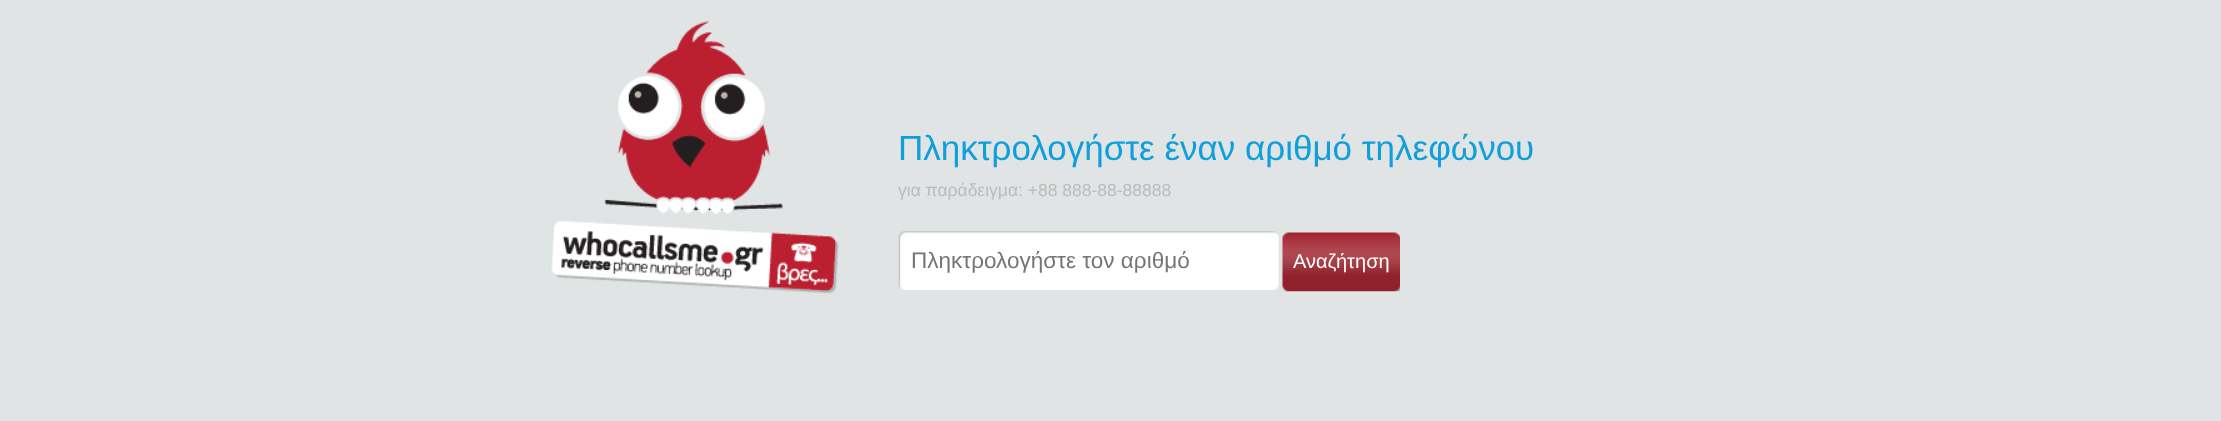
async function draw(canvas) {
	canvas.width = 2221;
	canvas.height = 421;
	const c = canvas.getContext('2d');
	c.miterLimit = 4;
	c.fontKerning = 'normal';
	async function loadImage(src) {
		const img = new Image();
		img.src = src;
		await img.decode();
		return img;
	}

	c.fillStyle = '#e0e4e5';
	c.fillRect(0, 0, 2221, 421);
	c.drawImage(await loadImage('img1.png'), 551, 21, 288, 273);
	c.font = '35px Liberation Sans';
	c.fillStyle = '#0f9fdb';
	c.fillText('Πληκτρολογήστε έναν αριθμό τηλεφώνου', 898, 160);
	c.font = '17.5px Liberation Sans';
	c.fillStyle = '#bbb';
	c.fillText('για παράδειγμα: +88 888-88-88888', 898, 196);
	c.drawImage(await loadImage('img2.png'), 898, 231, 381, 59);
	c.font = '22.5px Liberation Sans';
	c.fillStyle = '#757575';
	c.fillText('Πληκτρολογήστε τον αριθμό', 911, 268);
	c.drawImage(await loadImage('img3.png'), 1282, 232, 118, 60);
	c.font = '20px Liberation Sans';
	c.fillStyle = '#fff';
	c.fillText('Αναζήτηση', 1293, 268);
}

draw(document.querySelector('canvas'));
